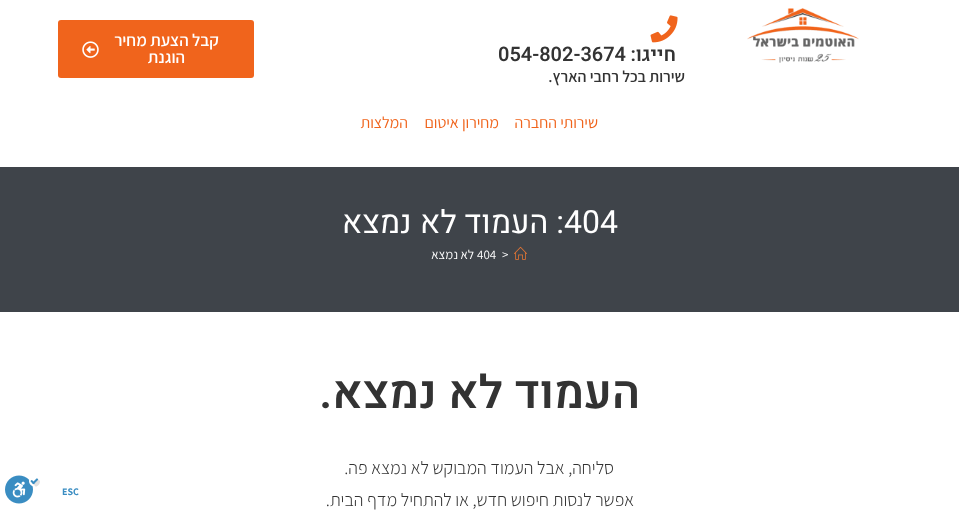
async function draw(canvas) {
	canvas.width = 959;
	canvas.height = 514;
	const c = canvas.getContext('2d');
	c.miterLimit = 4;
	c.fontKerning = 'normal';
	async function loadImage(src) {
		const img = new Image();
		img.src = src;
		await img.decode();
		return img;
	}

	c.fillStyle = '#fff';
	c.fillRect(0, 0, 959, 514);
	c.drawImage(await loadImage('img1.png'), 747, 8, 112, 55);
	c.drawImage(await loadImage('img2.png'), 650, 15, 28, 28);
	c.direction = 'rtl';
	c.font = '600 20px Heebo';
	c.fillStyle = '#333';
	c.fillText('חייגו:', 676, 61);
	c.direction = 'ltr';
	c.fillText('054-802-3674', 498, 61);
	c.direction = 'rtl';
	c.font = '600 16px Assistant';
	c.fillText('שירות בכל רחבי הארץ.', 685, 82);
	c.fillStyle = '#f0641c';
	c.beginPath();
	c.roundRect(58, 20, 196, 58, 3);
	c.fill();
	c.font = '600 17px Assistant';
	c.fillStyle = '#fff';
	c.fillText('קבל הצעת מחיר', 219, 46);
	c.fillText('הוגנת', 185, 63);
	c.drawImage(await loadImage('img3.png'), 82, 41, 17, 17);
	c.font = '16px Assistant';
	c.fillStyle = '#f0641c';
	for (const [text, x, y] of [
		['שירותי החברה', 598, 128],
		['מחירון איטום', 499, 128],
		['המלצות', 408, 128],
	]) {
		c.fillText(text, x, y);
	}
	c.fillStyle = '#3f444a';
	c.fillRect(0, 167, 959, 145);
	c.direction = 'ltr';
	c.font = '32px Heebo';
	c.fillStyle = '#fff';
	c.fillText('404', 564, 233);
	c.direction = 'rtl';
	c.fillText(': העמוד לא נמצא', 564, 233);
	c.drawImage(await loadImage('img4.png'), 514, 246, 13, 14);
	c.direction = 'ltr';
	c.font = '13px Assistant';
	c.fillText('>', 502, 259);
	c.fillText('404', 477, 259);
	c.direction = 'rtl';
	c.fillText('לא נמצא', 474, 259);
	c.font = '600 46px Heebo';
	c.fillStyle = '#333';
	c.fillText('העמוד לא נמצא.', 640, 408);
	c.font = '300 18px Assistant';
	c.fillText('סליחה, אבל העמוד המבוקש לא נמצא פה.', 614, 474);
	c.fillText('אפשר לנסות חיפוש חדש, או להתחיל מדף הבית.', 634, 506);
	c.direction = 'ltr';
	c.font = 'bold 10px Assistant';
	c.fillStyle = '#3a8dc2';
	c.fillText('ESC', 62, 495);
	c.drawImage(await loadImage('img5.png'), 5, 475, 35, 29);
}

draw(document.querySelector('canvas'));
